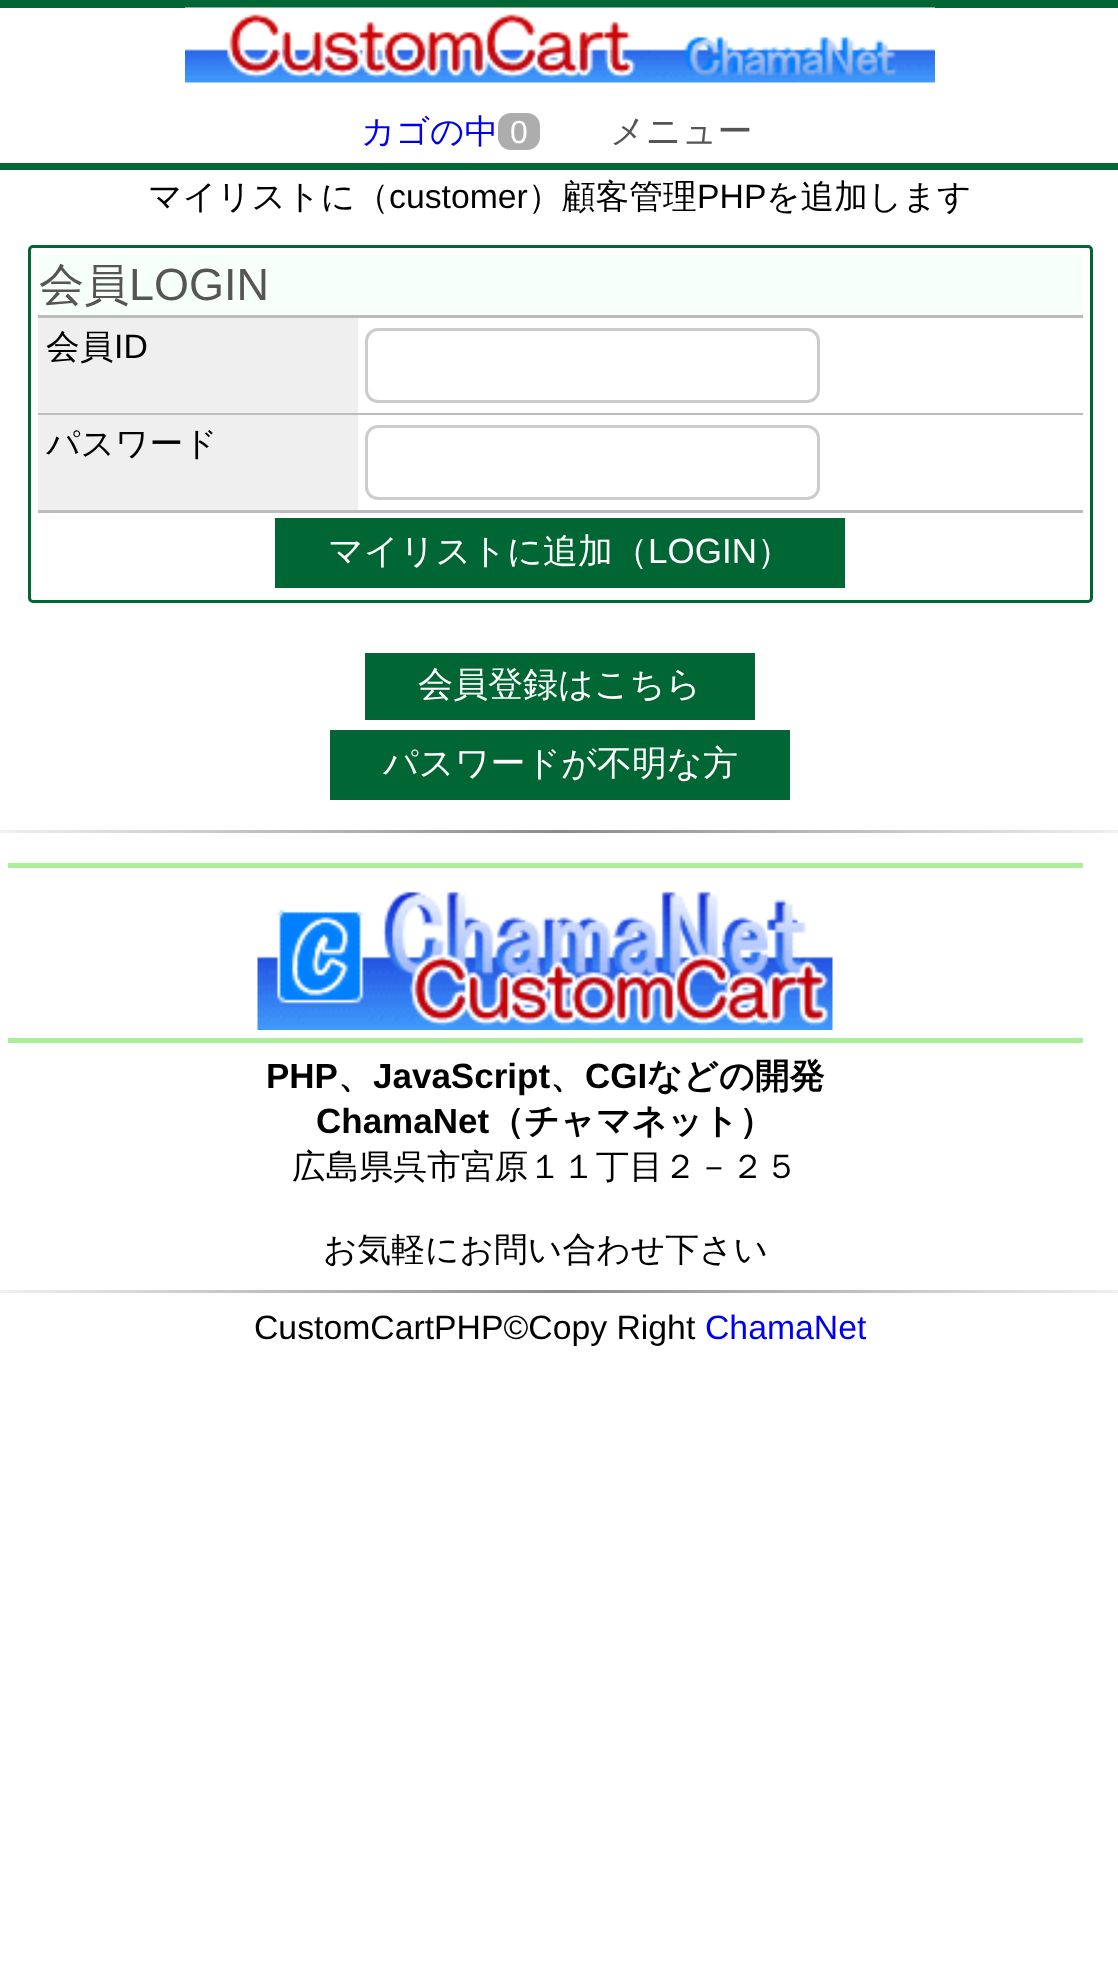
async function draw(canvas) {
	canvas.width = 1118;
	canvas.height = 1977;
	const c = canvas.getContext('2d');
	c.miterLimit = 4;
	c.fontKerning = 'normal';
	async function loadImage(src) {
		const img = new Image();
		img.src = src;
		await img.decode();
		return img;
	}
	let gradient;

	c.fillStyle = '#fff';
	c.fillRect(0, 0, 1118, 1977);
	c.fillStyle = '#063';
	c.fillRect(0, 0, 1118, 8);
	c.fillRect(0, 163, 1118, 7);
	c.drawImage(await loadImage('img1.png'), 185, 7, 750, 76);
	c.font = '500 33.75px WenQuanYi Zen Hei';
	c.fillStyle = '#00e';
	c.fillText('カゴの中', 361, 143);
	c.fillStyle = '#adadad';
	c.beginPath();
	c.roundRect(498, 113, 42, 37, 13);
	c.fill();
	c.font = '32px Liberation Sans';
	c.fillStyle = '#fff';
	c.fillText('0', 510, 143);
	c.font = '500 35px WenQuanYi Zen Hei';
	c.fillStyle = '#555';
	c.fillText('メニュー', 610, 143);
	c.font = '500 33.75px WenQuanYi Zen Hei';
	c.fillStyle = '#000';
	c.fillText('マイリストに（', 148, 208);
	c.font = '33.75px Liberation Sans';
	c.fillText('customer', 389, 208);
	c.font = '500 33.75px WenQuanYi Zen Hei';
	c.fillText('）顧客管理', 528, 208);
	c.font = '33.75px Liberation Sans';
	c.fillText('PHP', 697, 208);
	c.font = '500 33.75px WenQuanYi Zen Hei';
	c.fillText('を追加します', 766, 208);
	c.beginPath();
	c.roundRect(29.5, 246.5, 1062, 355, 3.5);
	c.strokeStyle = '#063';
	c.lineWidth = 3;
	c.stroke();
	c.fillStyle = '#f7fffb';
	c.fillRect(38, 255, 1045, 60);
	c.fillStyle = '#bcbcbc';
	c.fillRect(38, 315, 1045, 3);
	c.font = '500 45px WenQuanYi Zen Hei';
	c.fillStyle = '#555';
	c.fillText('会員', 39, 300);
	c.font = '45px Liberation Sans';
	c.fillText('LOGIN', 129, 300);
	c.fillStyle = '#bcbcbc';
	c.fillRect(38, 413, 1045, 2);
	c.fillStyle = '#efefef';
	c.fillRect(38, 318, 320, 95);
	c.font = '500 33.75px WenQuanYi Zen Hei';
	c.fillStyle = '#000';
	c.fillText('会員', 46, 358);
	c.font = '33.75px Liberation Sans';
	c.fillText('ID', 114, 358);
	c.beginPath();
	c.roundRect(366.5, 329.5, 452, 72, 11.5);
	c.strokeStyle = '#ccc';
	c.stroke();
	c.fillStyle = '#bcbcbc';
	c.fillRect(38, 510, 1045, 3);
	c.fillStyle = '#efefef';
	c.fillRect(38, 415, 320, 95);
	c.font = '500 33.75px WenQuanYi Zen Hei';
	c.fillStyle = '#000';
	c.fillText('パスワード', 46, 455);
	c.beginPath();
	c.roundRect(366.5, 426.5, 452, 72, 11.5);
	c.stroke();
	c.fillStyle = '#063';
	c.fillRect(275, 518, 570, 70);
	c.font = '500 35px WenQuanYi Zen Hei';
	c.fillStyle = '#fff';
	c.fillText('マイリストに追加（', 328, 563);
	c.font = '35px Liberation Sans';
	c.fillText('LOGIN', 648, 563);
	c.font = '500 35px WenQuanYi Zen Hei';
	c.fillText('）', 757, 563);
	c.fillStyle = '#063';
	c.fillRect(365, 653, 390, 67);
	c.fillStyle = '#fff';
	c.fillText('会員登録はこちら', 418, 696);
	c.fillStyle = '#063';
	c.fillRect(330, 730, 460, 70);
	c.fillStyle = '#fff';
	c.fillText('パスワードが不明な方', 383, 775);
	gradient = c.createLinearGradient(0, 831, 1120, 831);
	gradient.addColorStop(0, '#f0f0f0');
	gradient.addColorStop(0.5, '#8c8b8b');
	gradient.addColorStop(1, '#f0f0f0');
	c.fillStyle = gradient;
	c.fillRect(0, 830, 1118, 3);
	c.fillStyle = '#ae9';
	c.fillRect(8, 863, 1075, 5);
	c.drawImage(await loadImage('img2.png'), 257, 891, 576, 139);
	c.fillRect(8, 1038, 1075, 5);
	c.font = 'bold 35px Liberation Sans';
	c.fillStyle = '#000';
	c.fillText('PHP', 266, 1088);
	c.font = 'bold 35px WenQuanYi Zen Hei';
	c.fillText('、', 338, 1088);
	c.font = 'bold 35px Liberation Sans';
	c.fillText('JavaScript', 373, 1088);
	c.font = 'bold 35px WenQuanYi Zen Hei';
	c.fillText('、', 550, 1088);
	c.font = 'bold 35px Liberation Sans';
	c.fillText('CGI', 585, 1088);
	c.font = 'bold 35px WenQuanYi Zen Hei';
	c.fillText('などの開発', 647, 1088);
	c.font = 'bold 35px Liberation Sans';
	c.fillText('ChamaNet', 316, 1133);
	c.font = 'bold 35px WenQuanYi Zen Hei';
	c.fillText('（チャマネット）', 489, 1133);
	c.font = '500 33.75px WenQuanYi Zen Hei';
	c.fillText('広島県呉市宮原１１丁目２－２５', 292, 1178);
	c.fillText('お気軽にお問い合わせ下さい', 323, 1261);
	gradient = c.createLinearGradient(0, 1291, 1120, 1291);
	gradient.addColorStop(0, '#f0f0f0');
	gradient.addColorStop(0.5, '#8c8b8b');
	gradient.addColorStop(1, '#f0f0f0');
	c.fillStyle = gradient;
	c.fillRect(0, 1290, 1118, 3);
	c.font = '33.75px Liberation Sans';
	c.fillStyle = '#000';
	c.fillText('CustomCartPHP©Copy Right', 254, 1339);
	c.fillStyle = '#00e';
	c.fillText('ChamaNet', 705, 1339);
}

draw(document.querySelector('canvas'));
